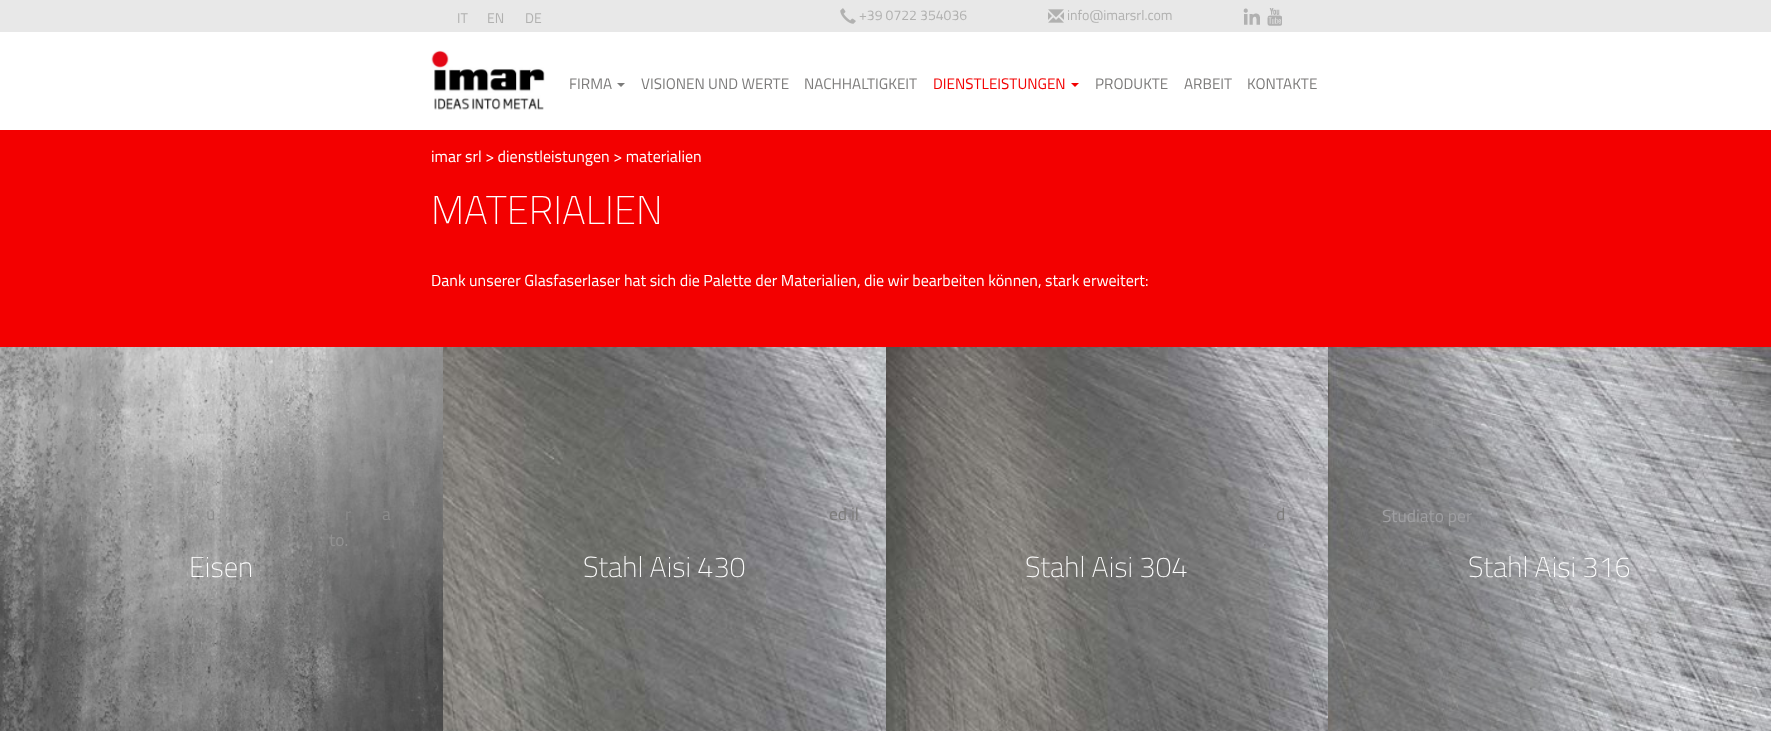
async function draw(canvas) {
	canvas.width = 1771;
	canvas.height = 731;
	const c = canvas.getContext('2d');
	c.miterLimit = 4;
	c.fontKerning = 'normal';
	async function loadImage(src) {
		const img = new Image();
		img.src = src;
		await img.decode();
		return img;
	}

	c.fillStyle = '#fff';
	c.fillRect(0, 0, 1771, 731);
	c.fillStyle = '#e8e8e8';
	c.fillRect(0, 0, 1771, 32);
	c.font = '14px Titillium Web';
	c.fillStyle = '#b1b1b0';
	for (const [text, x, y] of [
		['IT', 457, 23],
		['EN', 487, 23],
		['DE', 525, 23],
	]) {
		c.fillText(text, x, y);
	}
	c.drawImage(await loadImage('img1.png'), 840, 8, 16, 16);
	c.fillText('+39 0722 354036', 859, 20);
	c.drawImage(await loadImage('img2.png'), 1048, 9, 16, 14);
	c.fillText('info@imarsrl.com', 1067, 20);
	c.drawImage(await loadImage('img3.png'), 1243, 8, 17, 17);
	c.drawImage(await loadImage('img4.png'), 1267, 8, 15, 18);
	c.drawImage(await loadImage('img5.png'), 431, 50, 114, 60);
	c.font = '15.25px Titillium Web';
	c.fillStyle = '#7d7c7b';
	c.fillText('FIRMA', 569, 89);
	c.fillStyle = '#7c7c7b';
	c.beginPath();
	c.moveTo(617, 83);
	c.lineTo(625, 83);
	c.lineTo(621, 87);
	c.closePath();
	c.fill();
	c.fillStyle = '#7d7c7b';
	c.fillText('VISIONEN UND WERTE', 641, 89);
	c.fillText('NACHHALTIGKEIT', 804, 89);
	c.fillStyle = '#f30000';
	c.fillText('DIENSTLEISTUNGEN', 933, 89);
	c.beginPath();
	c.moveTo(1071, 83);
	c.lineTo(1079, 83);
	c.lineTo(1075, 87);
	c.closePath();
	c.fill();
	c.fillStyle = '#7d7c7b';
	for (const [text, x, y] of [
		['PRODUKTE', 1095, 89],
		['ARBEIT', 1184, 89],
		['KONTAKTE', 1247, 89],
	]) {
		c.fillText(text, x, y);
	}
	c.fillStyle = '#f30000';
	c.fillRect(0, 130, 1771, 217);
	c.font = '16px Titillium Web';
	c.fillStyle = '#fff';
	c.fillText('imar srl > dienstleistungen > materialien', 431, 162);
	c.font = '200 40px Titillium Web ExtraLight';
	c.fillText('MATERIALIEN', 431, 224);
	c.font = '16px Titillium Web';
	c.fillText('Dank unserer Glasfaserlaser hat sich die Palette der Materialien, die wir bearbeiten können, stark erweitert:', 431, 286);
	c.drawImage(await loadImage('img6.png'), 0, 347, 443, 384);
	c.font = '17.5px Titillium Web';
	c.fillStyle = '#8c8c8c';
	for (const [text, x, y] of [
		['r', 125, 520],
		['u', 206, 520],
		['r', 345, 520],
		['a', 382, 520],
	]) {
		c.fillText(text, x, y);
	}
	c.fillStyle = '#929292';
	c.fillText('to.', 329, 546);
	c.font = '200 28.75px Titillium Web ExtraLight';
	c.fillStyle = '#fff';
	c.fillText('Eisen', 189, 577);
	c.drawImage(await loadImage('img7.png'), 443, 347, 443, 384);
	c.font = '17.5px Titillium Web';
	c.fillStyle = '#7d7c7b';
	c.fillText('ed il', 829, 520);
	c.font = '200 28.75px Titillium Web ExtraLight';
	c.fillStyle = '#fff';
	c.fillText('Stahl Aisi 430', 583, 577);
	c.drawImage(await loadImage('img8.png'), 886, 347, 442, 384);
	c.font = '17.5px Titillium Web';
	c.fillStyle = '#7d7c7b';
	c.fillText('d', 1276, 520);
	c.fillText('.', 1263, 546);
	c.font = '200 28.75px Titillium Web ExtraLight';
	c.fillStyle = '#fff';
	c.fillText('Stahl Aisi 304', 1025, 577);
	c.drawImage(await loadImage('img9.png'), 1328, 347, 443, 384);
	c.font = '17.5px Titillium Web';
	c.fillStyle = '#9f9fa2';
	c.fillText('Studiato per', 1382, 522);
	c.fillText('.', 1713, 522);
	c.font = '200 28.75px Titillium Web ExtraLight';
	c.fillStyle = '#fff';
	c.fillText('Stahl Aisi 316', 1468, 577);
}

draw(document.querySelector('canvas'));
